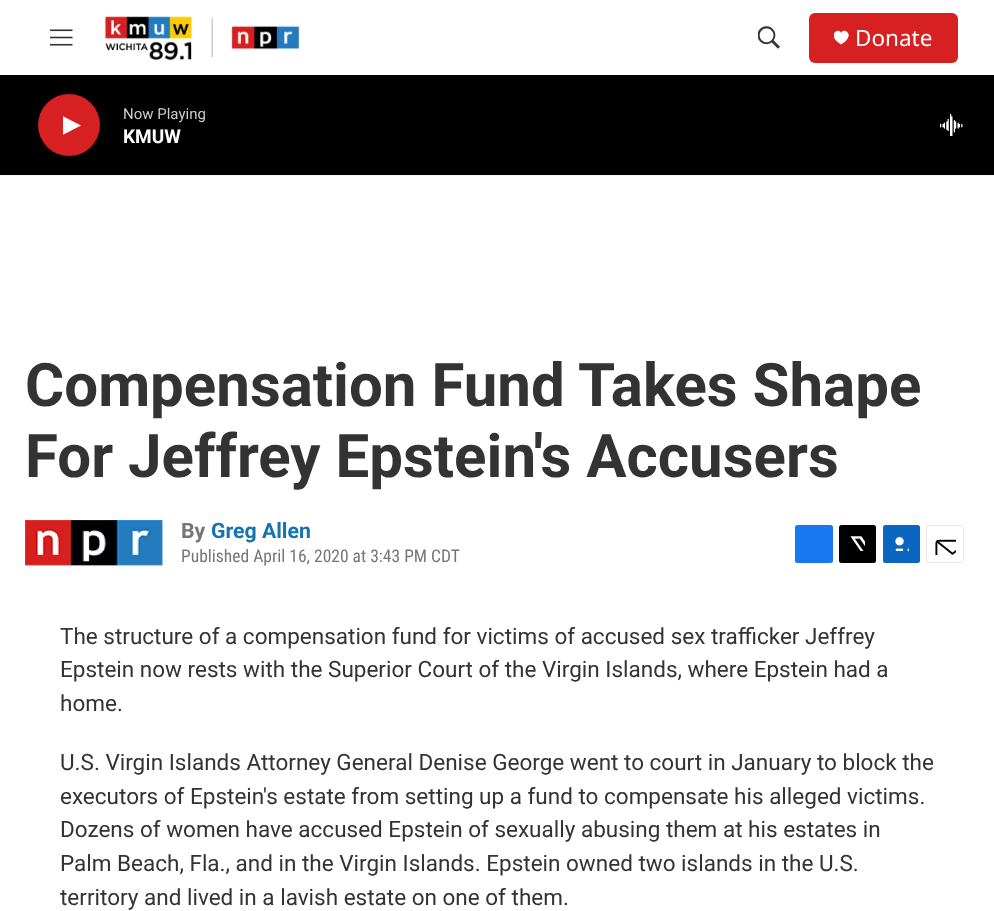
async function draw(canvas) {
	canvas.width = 994;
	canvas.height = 911;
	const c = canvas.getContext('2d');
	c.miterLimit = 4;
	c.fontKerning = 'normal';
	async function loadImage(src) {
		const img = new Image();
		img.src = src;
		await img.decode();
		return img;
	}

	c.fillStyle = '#fff';
	c.fillRect(0, 0, 994, 911);
	c.fillStyle = '#f5f5f5';
	c.fillRect(0, 175, 994, 1);
	c.drawImage(await loadImage('img1.png'), 50, 29, 23, 17);
	c.drawImage(await loadImage('img2.png'), 104, 16, 196, 45);
	c.drawImage(await loadImage('img3.png'), 758, 26, 22, 23);
	c.fillStyle = '#d62021';
	c.beginPath();
	c.roundRect(809, 13, 149, 50, 6);
	c.fill();
	c.save();
	c.beginPath();
	c.rect(834, 30, 15, 15);
	c.clip();
	c.fillStyle = '#fff';
	c.beginPath();
	c.moveTo(841, 33);
	c.bezierCurveTo(839, 26.5, 825.5, 35, 841, 44.5);
	c.bezierCurveTo(857, 35, 843.5, 26.5, 841, 33);
	c.closePath();
	c.fill();
	c.restore();
	c.font = '22.5px Noto Sans';
	c.fillStyle = '#fff';
	c.fillText('Donate', 855, 46);
	c.fillStyle = '#000';
	c.fillRect(0, 75, 994, 100);
	c.fillStyle = '#d62021';
	c.beginPath();
	c.arc(69, 125, 31, 0, 2 * Math.PI);
	c.fill();
	c.save();
	c.beginPath();
	c.rect(63, 114, 18, 24);
	c.clip();
	c.fillStyle = '#fff';
	c.beginPath();
	c.moveTo(62.5, 116);
	c.lineTo(81, 125.5);
	c.lineTo(62.5, 135);
	c.closePath();
	c.fill();
	c.restore();
	c.font = '15px Roboto';
	c.fillStyle = '#ccc';
	c.fillText('Now Playing', 123, 119);
	c.font = 'bold 19px "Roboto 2"';
	c.fillStyle = '#fff';
	c.fillText('KMUW', 123, 143);
	c.drawImage(await loadImage('img4.png'), 940, 114, 23, 22);
	c.font = 'bold 60px Roboto';
	c.fillStyle = '#333';
	c.fillText('Compensation Fund Takes Shape', 25, 406);
	c.fillText('For Jeffrey Epstein\'s Accusers', 25, 477);
	c.drawImage(await loadImage('img5.png'), 25, 520, 138, 46);
	c.font = 'bold 21.25px Roboto';
	c.fillStyle = '#767676';
	c.fillText('By', 181, 538);
	c.fillStyle = '#1772b0';
	c.fillText('Greg Allen', 211, 538);
	c.font = '17.5px Roboto Condensed';
	c.fillStyle = '#767676';
	c.fillText('Published April 16, 2020 at 3:43 PM CDT', 181, 562);
	c.fillStyle = '#1778f2';
	c.beginPath();
	c.roundRect(795, 525, 38, 38, 2.5);
	c.fill();
	c.fillStyle = '#000';
	c.beginPath();
	c.roundRect(839, 525, 37, 38, 2.5);
	c.fill();
	c.drawImage(await loadImage('img6.png'), 850, 536, 15, 15);
	c.fillStyle = '#0a66c1';
	c.beginPath();
	c.roundRect(883, 525, 37, 38, 2.5);
	c.fill();
	c.drawImage(await loadImage('img7.png'), 895, 537, 14, 14);
	c.beginPath();
	c.roundRect(926.5, 525.5, 37, 37, 2);
	c.strokeStyle = '#e6e6e6';
	c.stroke();
	c.drawImage(await loadImage('img8.png'), 935, 539, 21, 16);
	c.font = '22.5px Roboto';
	c.fillStyle = '#333';
	for (const [text, x, y] of [
		['The structure of a compensation fund for victims of accused sex trafficker Jeffrey', 60, 644],
		['Epstein now rests with the Superior Court of the Virgin Islands, where Epstein had a', 60, 677],
		['home.', 60, 711],
		['U.S. Virgin Islands Attorney General Denise George went to court in January to block the', 60, 770],
		['executors of Epstein\'s estate from setting up a fund to compensate his alleged victims.', 60, 804],
		['Dozens of women have accused Epstein of sexually abusing them at his estates in', 60, 837],
		['Palm Beach, Fla., and in the Virgin Islands. Epstein owned two islands in the U.S.', 60, 871],
		['territory and lived in a lavish estate on one of them.', 60, 905],
	]) {
		c.fillText(text, x, y);
	}
}

draw(document.querySelector('canvas'));
